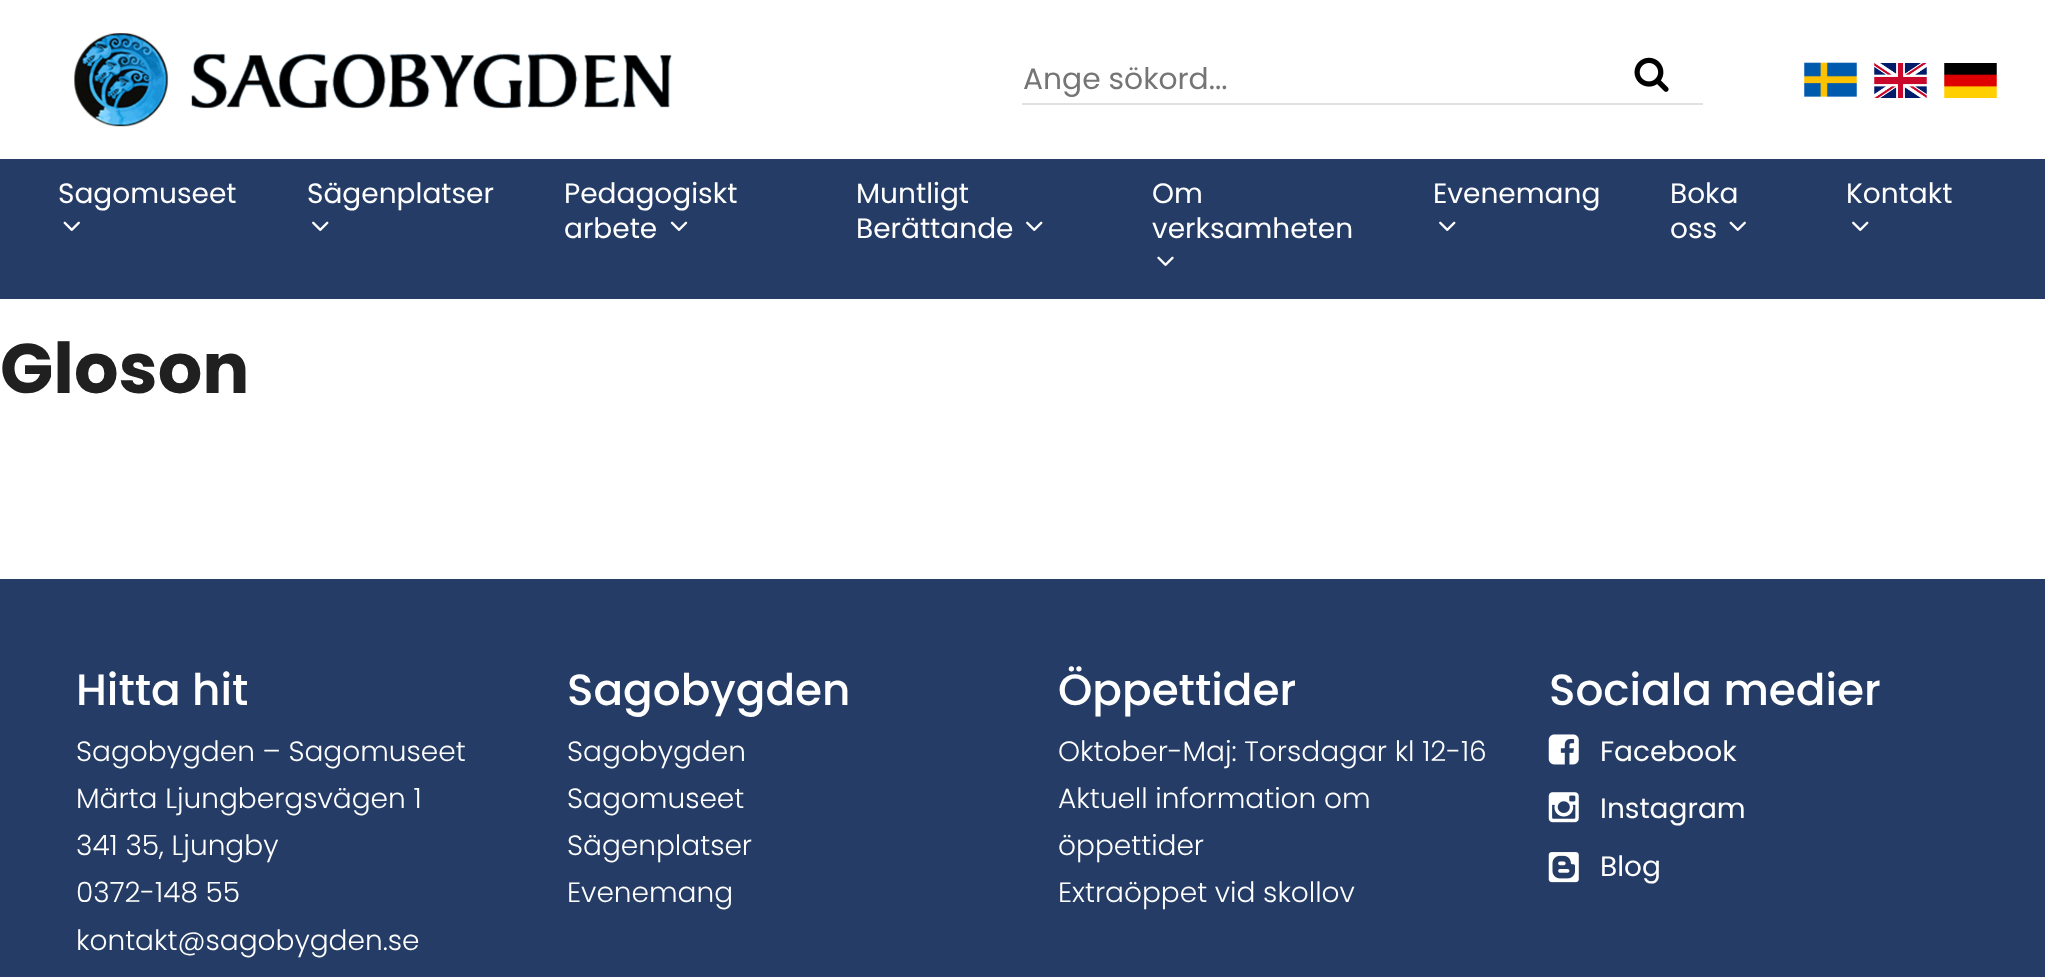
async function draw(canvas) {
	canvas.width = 2045;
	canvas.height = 977;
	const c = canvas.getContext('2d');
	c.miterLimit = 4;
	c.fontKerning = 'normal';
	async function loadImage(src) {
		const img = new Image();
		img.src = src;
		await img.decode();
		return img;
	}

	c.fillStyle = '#fff';
	c.fillRect(0, 0, 2045, 977);
	c.drawImage(await loadImage('img1.png'), 74, 33, 598, 94);
	c.fillStyle = '#e1e1e1';
	c.fillRect(1022, 103, 681, 2);
	c.font = '29.75px Poppins';
	c.fillStyle = '#757575';
	c.fillText('Ange sökord...', 1023, 89);
	c.drawImage(await loadImage('img2.png'), 1634, 57, 35, 35);
	c.drawImage(await loadImage('img3.png'), 1804, 62, 53, 35);
	c.drawImage(await loadImage('img4.png'), 1874, 63, 53, 35);
	c.drawImage(await loadImage('img5.png'), 1944, 63, 53, 35);
	c.fillStyle = '#253d66';
	c.fillRect(0, 159, 2045, 140);
	c.font = '28px Poppins';
	c.fillStyle = '#fff';
	c.fillText('Sagomuseet', 58, 203);
	c.drawImage(await loadImage('img6.png'), 63, 221, 17, 10);
	c.fillText('Sägenplatser', 307, 203);
	c.drawImage(await loadImage('img7.png'), 312, 221, 17, 10);
	c.fillText('Pedagogiskt', 564, 203);
	c.fillText('arbete', 564, 238);
	c.drawImage(await loadImage('img8.png'), 670, 221, 18, 10);
	c.fillText('Muntligt', 856, 203);
	c.fillText('Berättande', 856, 238);
	c.drawImage(await loadImage('img7.png'), 1026, 221, 17, 10);
	c.fillText('Om', 1152, 203);
	c.fillText('verksamheten', 1152, 238);
	c.drawImage(await loadImage('img9.png'), 1157, 256, 17, 10);
	c.fillText('Evenemang', 1433, 203);
	c.drawImage(await loadImage('img7.png'), 1439, 221, 17, 10);
	c.fillText('Boka', 1670, 203);
	c.fillText('oss', 1670, 238);
	c.drawImage(await loadImage('img6.png'), 1729, 221, 17, 10);
	c.fillText('Kontakt', 1846, 203);
	c.drawImage(await loadImage('img7.png'), 1852, 221, 17, 10);
	c.font = 'bold 70px Poppins';
	c.fillStyle = '#202020';
	c.fillText('Gloson', 0, 393);
	c.fillStyle = '#253d66';
	c.fillRect(0, 579, 2045, 398);
	c.font = '500 43.75px Poppins';
	c.fillStyle = '#fff';
	c.fillText('Hitta hit', 76, 705);
	c.font = '300 28px Poppins';
	for (const [text, x, y] of [
		['Sagobygden – Sagomuseet', 76, 761],
		['Märta Ljungbergsvägen 1', 76, 808],
		['341 35, Ljungby', 76, 855],
		['0372-148 55', 76, 902],
		['kontakt@sagobygden.se', 76, 950],
	]) {
		c.fillText(text, x, y);
	}
	c.font = '500 43.75px Poppins';
	c.fillText('Sagobygden', 567, 705);
	c.font = '300 28px Poppins';
	for (const [text, x, y] of [
		['Sagobygden', 567, 761],
		['Sagomuseet', 567, 808],
		['Sägenplatser', 567, 855],
		['Evenemang', 567, 902],
	]) {
		c.fillText(text, x, y);
	}
	c.font = '500 43.75px Poppins';
	c.fillText('Öppettider', 1058, 705);
	c.font = '300 28px Poppins';
	for (const [text, x, y] of [
		['Oktober-Maj: Torsdagar kl 12-16', 1058, 761],
		['Aktuell information om', 1058, 808],
		['öppettider', 1058, 855],
		['Extraöppet vid skollov', 1058, 902],
	]) {
		c.fillText(text, x, y);
	}
	c.font = '500 43.75px Poppins';
	c.fillText('Sociala medier', 1549, 705);
	c.drawImage(await loadImage('img10.png'), 1548, 734, 31, 31);
	c.font = '28px Poppins';
	c.fillText('Facebook', 1600, 761);
	c.drawImage(await loadImage('img11.png'), 1548, 792, 31, 31);
	c.fillText('Instagram', 1600, 818);
	c.drawImage(await loadImage('img12.png'), 1548, 852, 31, 31);
	c.fillText('Blog', 1600, 876);
}

draw(document.querySelector('canvas'));
